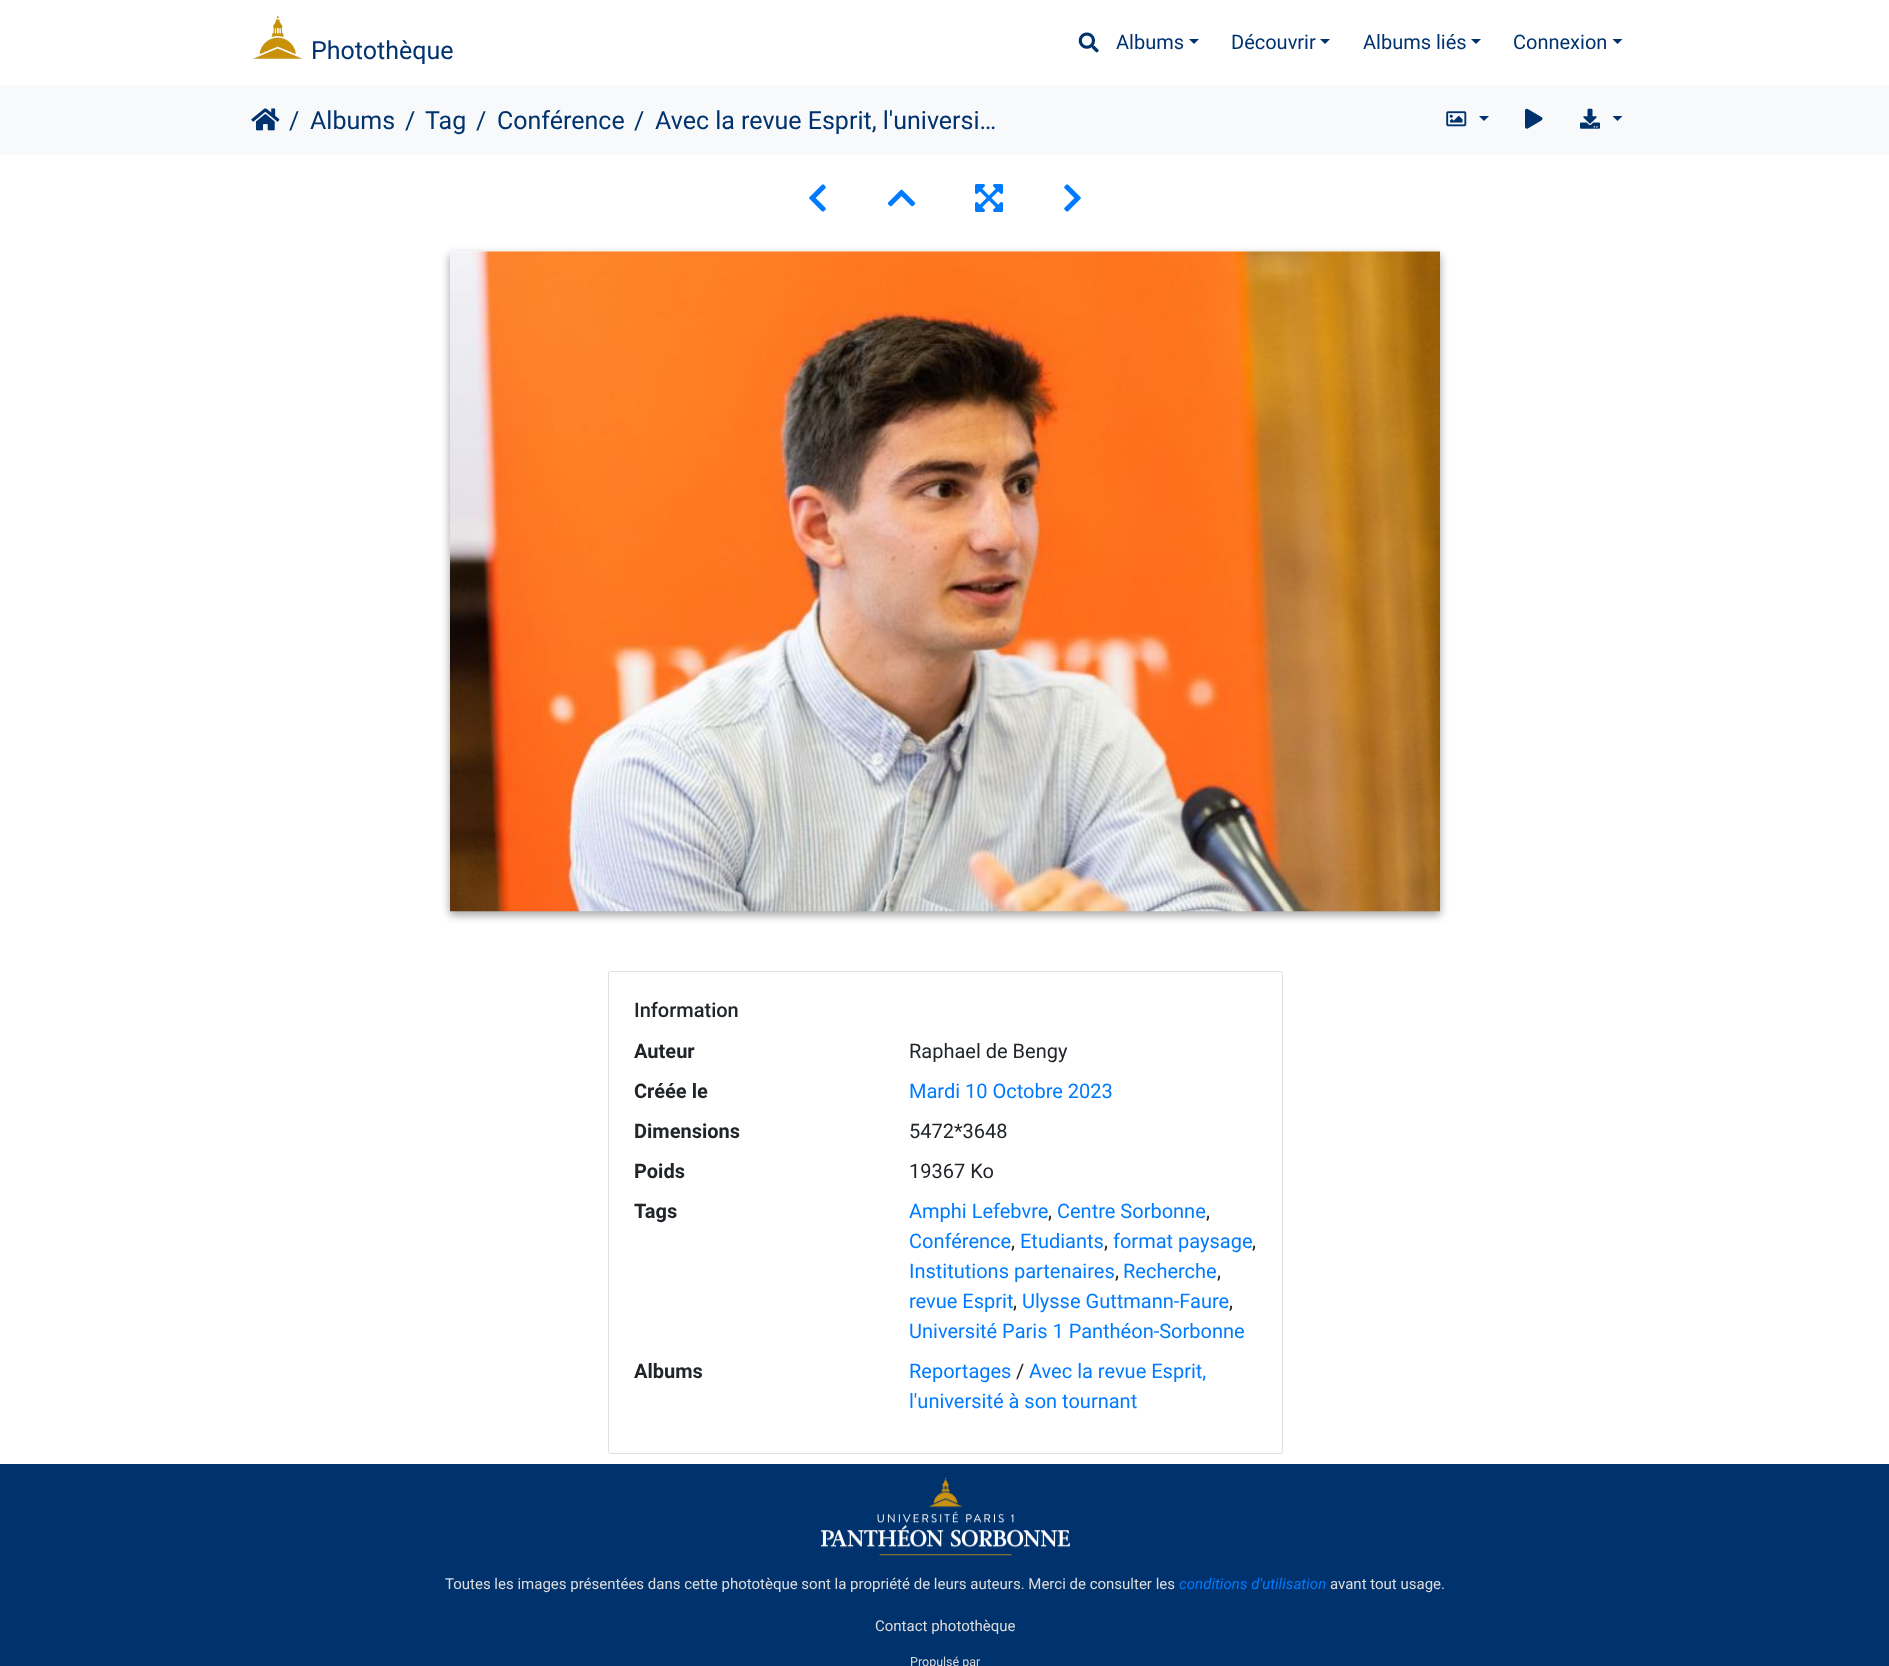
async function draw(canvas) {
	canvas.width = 1889;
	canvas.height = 1666;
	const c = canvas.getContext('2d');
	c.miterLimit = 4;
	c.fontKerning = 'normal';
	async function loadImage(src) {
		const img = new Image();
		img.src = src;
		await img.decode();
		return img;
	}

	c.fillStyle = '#fff';
	c.fillRect(0, 0, 1889, 1666);
	c.drawImage(await loadImage('img1.png'), 252, 16, 51, 43);
	c.font = '25px Roboto';
	c.fillStyle = '#00326e';
	c.fillText('Photothèque', 311, 59);
	c.drawImage(await loadImage('img2.png'), 1078, 32, 21, 21);
	c.font = '20px Roboto';
	c.fillText('Albums', 1116, 49);
	c.beginPath();
	c.moveTo(1189, 39);
	c.lineTo(1199, 39);
	c.lineTo(1194, 44);
	c.closePath();
	c.fill();
	c.fillText('Découvrir', 1231, 49);
	c.beginPath();
	c.moveTo(1320, 39);
	c.lineTo(1330, 39);
	c.lineTo(1325, 44);
	c.closePath();
	c.fill();
	c.fillText('Albums liés', 1363, 49);
	c.beginPath();
	c.moveTo(1471, 39);
	c.lineTo(1481, 39);
	c.lineTo(1476, 44);
	c.closePath();
	c.fill();
	c.fillText('Connexion', 1513, 49);
	c.beginPath();
	c.moveTo(1612.5, 39);
	c.lineTo(1622.5, 39);
	c.lineTo(1617.5, 44);
	c.closePath();
	c.fill();
	c.fillStyle = '#f8f9fa';
	c.fillRect(0, 85, 1889, 70);
	c.drawImage(await loadImage('img3.png'), 251, 108, 29, 23);
	c.font = '25px Roboto';
	c.fillStyle = '#00326e';
	for (const [text, x, y] of [
		['/', 289, 129],
		['Albums', 310, 129],
		['/', 405, 129],
		['Tag', 425, 129],
		['/', 476, 129],
		['Conférence', 497, 129],
		['/', 634, 129],
		['Avec la revue Esprit, l\'universi…', 655, 129],
	]) {
		c.fillText(text, x, y);
	}
	c.drawImage(await loadImage('img4.png'), 1446, 111, 21, 16);
	c.beginPath();
	c.moveTo(1479, 116);
	c.lineTo(1489, 116);
	c.lineTo(1484, 121);
	c.closePath();
	c.fill();
	c.drawImage(await loadImage('img5.png'), 1525, 108, 18, 21);
	c.drawImage(await loadImage('img6.png'), 1580, 108, 20, 21);
	c.beginPath();
	c.moveTo(1612.5, 116);
	c.lineTo(1622.5, 116);
	c.lineTo(1617.5, 121);
	c.closePath();
	c.fill();
	c.drawImage(await loadImage('img7.png'), 809, 184, 17, 28);
	c.drawImage(await loadImage('img8.png'), 887, 189, 29, 18);
	c.drawImage(await loadImage('img9.png'), 975, 184, 28, 28);
	c.drawImage(await loadImage('img10.png'), 1064, 184, 17, 28);
	c.save();
	c.beginPath();
	c.moveTo(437, 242);
	c.lineTo(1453, 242);
	c.lineTo(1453, 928);
	c.lineTo(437, 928);
	c.closePath();
	c.moveTo(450, 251);
	c.lineTo(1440, 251);
	c.lineTo(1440, 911);
	c.lineTo(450, 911);
	c.closePath();
	c.clip('evenodd');
	c.fillStyle = '#0000003b';
	c.filter = 'blur(4px)';
	c.beginPath();
	c.rect(450, 255, 990, 660);
	c.fill();
	c.filter = 'none';
	c.fillStyle = '#00000029';
	c.filter = 'blur(4px)';
	c.beginPath();
	c.rect(450, 255, 990, 660);
	c.fill();
	c.filter = 'none';
	c.restore();
	c.drawImage(await loadImage('img11.png'), 450, 251, 990, 661);
	c.beginPath();
	c.roundRect(608.5, 971.5, 674, 482, 2);
	c.strokeStyle = '#dfdfdf';
	c.stroke();
	c.font = '500 20px Roboto';
	c.fillStyle = '#212529';
	c.fillText('Information', 634, 1017);
	c.font = 'bold 20px Roboto';
	c.fillText('Auteur', 634, 1058);
	c.font = '20px Roboto';
	c.fillText('Raphael de Bengy', 909, 1058);
	c.font = 'bold 20px Roboto';
	c.fillText('Créée le', 634, 1098);
	c.font = '20px Roboto';
	c.fillStyle = '#007bff';
	c.fillText('Mardi 10 Octobre 2023', 909, 1098);
	c.font = 'bold 20px Roboto';
	c.fillStyle = '#212529';
	c.fillText('Dimensions', 634, 1138);
	c.font = '20px Roboto';
	c.fillText('5472*3648', 909, 1138);
	c.font = 'bold 20px Roboto';
	c.fillText('Poids', 634, 1178);
	c.font = '20px Roboto';
	c.fillText('19367 Ko', 909, 1178);
	c.font = 'bold 20px Roboto';
	c.fillText('Tags', 634, 1218);
	c.font = '20px Roboto';
	c.fillStyle = '#007bff';
	c.fillText('Amphi Lefebvre', 909, 1218);
	c.fillStyle = '#212529';
	c.fillText(',', 1048, 1218);
	c.fillStyle = '#007bff';
	c.fillText('Centre Sorbonne', 1057, 1218);
	c.fillStyle = '#212529';
	c.fillText(',', 1206, 1218);
	c.fillStyle = '#007bff';
	c.fillText('Conférence', 909, 1248);
	c.fillStyle = '#212529';
	c.fillText(',', 1011, 1248);
	c.fillStyle = '#007bff';
	c.fillText('Etudiants', 1020, 1248);
	c.fillStyle = '#212529';
	c.fillText(',', 1104, 1248);
	c.fillStyle = '#007bff';
	c.fillText('format paysage', 1113, 1248);
	c.fillStyle = '#212529';
	c.fillText(',', 1252, 1248);
	c.fillStyle = '#007bff';
	c.fillText('Institutions partenaires', 909, 1278);
	c.fillStyle = '#212529';
	c.fillText(',', 1115, 1278);
	c.fillStyle = '#007bff';
	c.fillText('Recherche', 1123, 1278);
	c.fillStyle = '#212529';
	c.fillText(',', 1217, 1278);
	c.fillStyle = '#007bff';
	c.fillText('revue Esprit', 909, 1308);
	c.fillStyle = '#212529';
	c.fillText(',', 1013, 1308);
	c.fillStyle = '#007bff';
	c.fillText('Ulysse Guttmann-Faure', 1022, 1308);
	c.fillStyle = '#212529';
	c.fillText(',', 1229, 1308);
	c.fillStyle = '#007bff';
	c.fillText('Université Paris 1 Panthéon-Sorbonne', 909, 1338);
	c.font = 'bold 20px Roboto';
	c.fillStyle = '#212529';
	c.fillText('Albums', 634, 1378);
	c.font = '20px Roboto';
	c.fillStyle = '#007bff';
	c.fillText('Reportages', 909, 1378);
	c.fillStyle = '#212529';
	c.fillText('/', 1016, 1378);
	c.fillStyle = '#007bff';
	c.fillText('Avec la revue Esprit,', 1029, 1378);
	c.fillText('l\'université à son tournant', 909, 1408);
	c.fillStyle = '#00326e';
	c.fillRect(0, 1464, 1889, 202);
	c.drawImage(await loadImage('img12.png'), 821, 1478, 249, 78);
	c.font = '15px Roboto';
	c.fillStyle = '#ddd';
	c.fillText('Toutes les images présentées dans cette phototèque sont la propriété de leurs auteurs. Merci de consulter les', 445, 1589);
	c.font = 'italic 15px Roboto';
	c.fillStyle = '#007bff';
	c.fillText('conditions d\'utilisation', 1179, 1589);
	c.font = '15px Roboto';
	c.fillStyle = '#ddd';
	c.fillText('avant tout usage.', 1330, 1589);
	c.fillText('Contact photothèque', 875, 1631);
	c.font = '12.5px Roboto';
	c.fillText('Propulsé par', 910, 1666);
}

draw(document.querySelector('canvas'));
